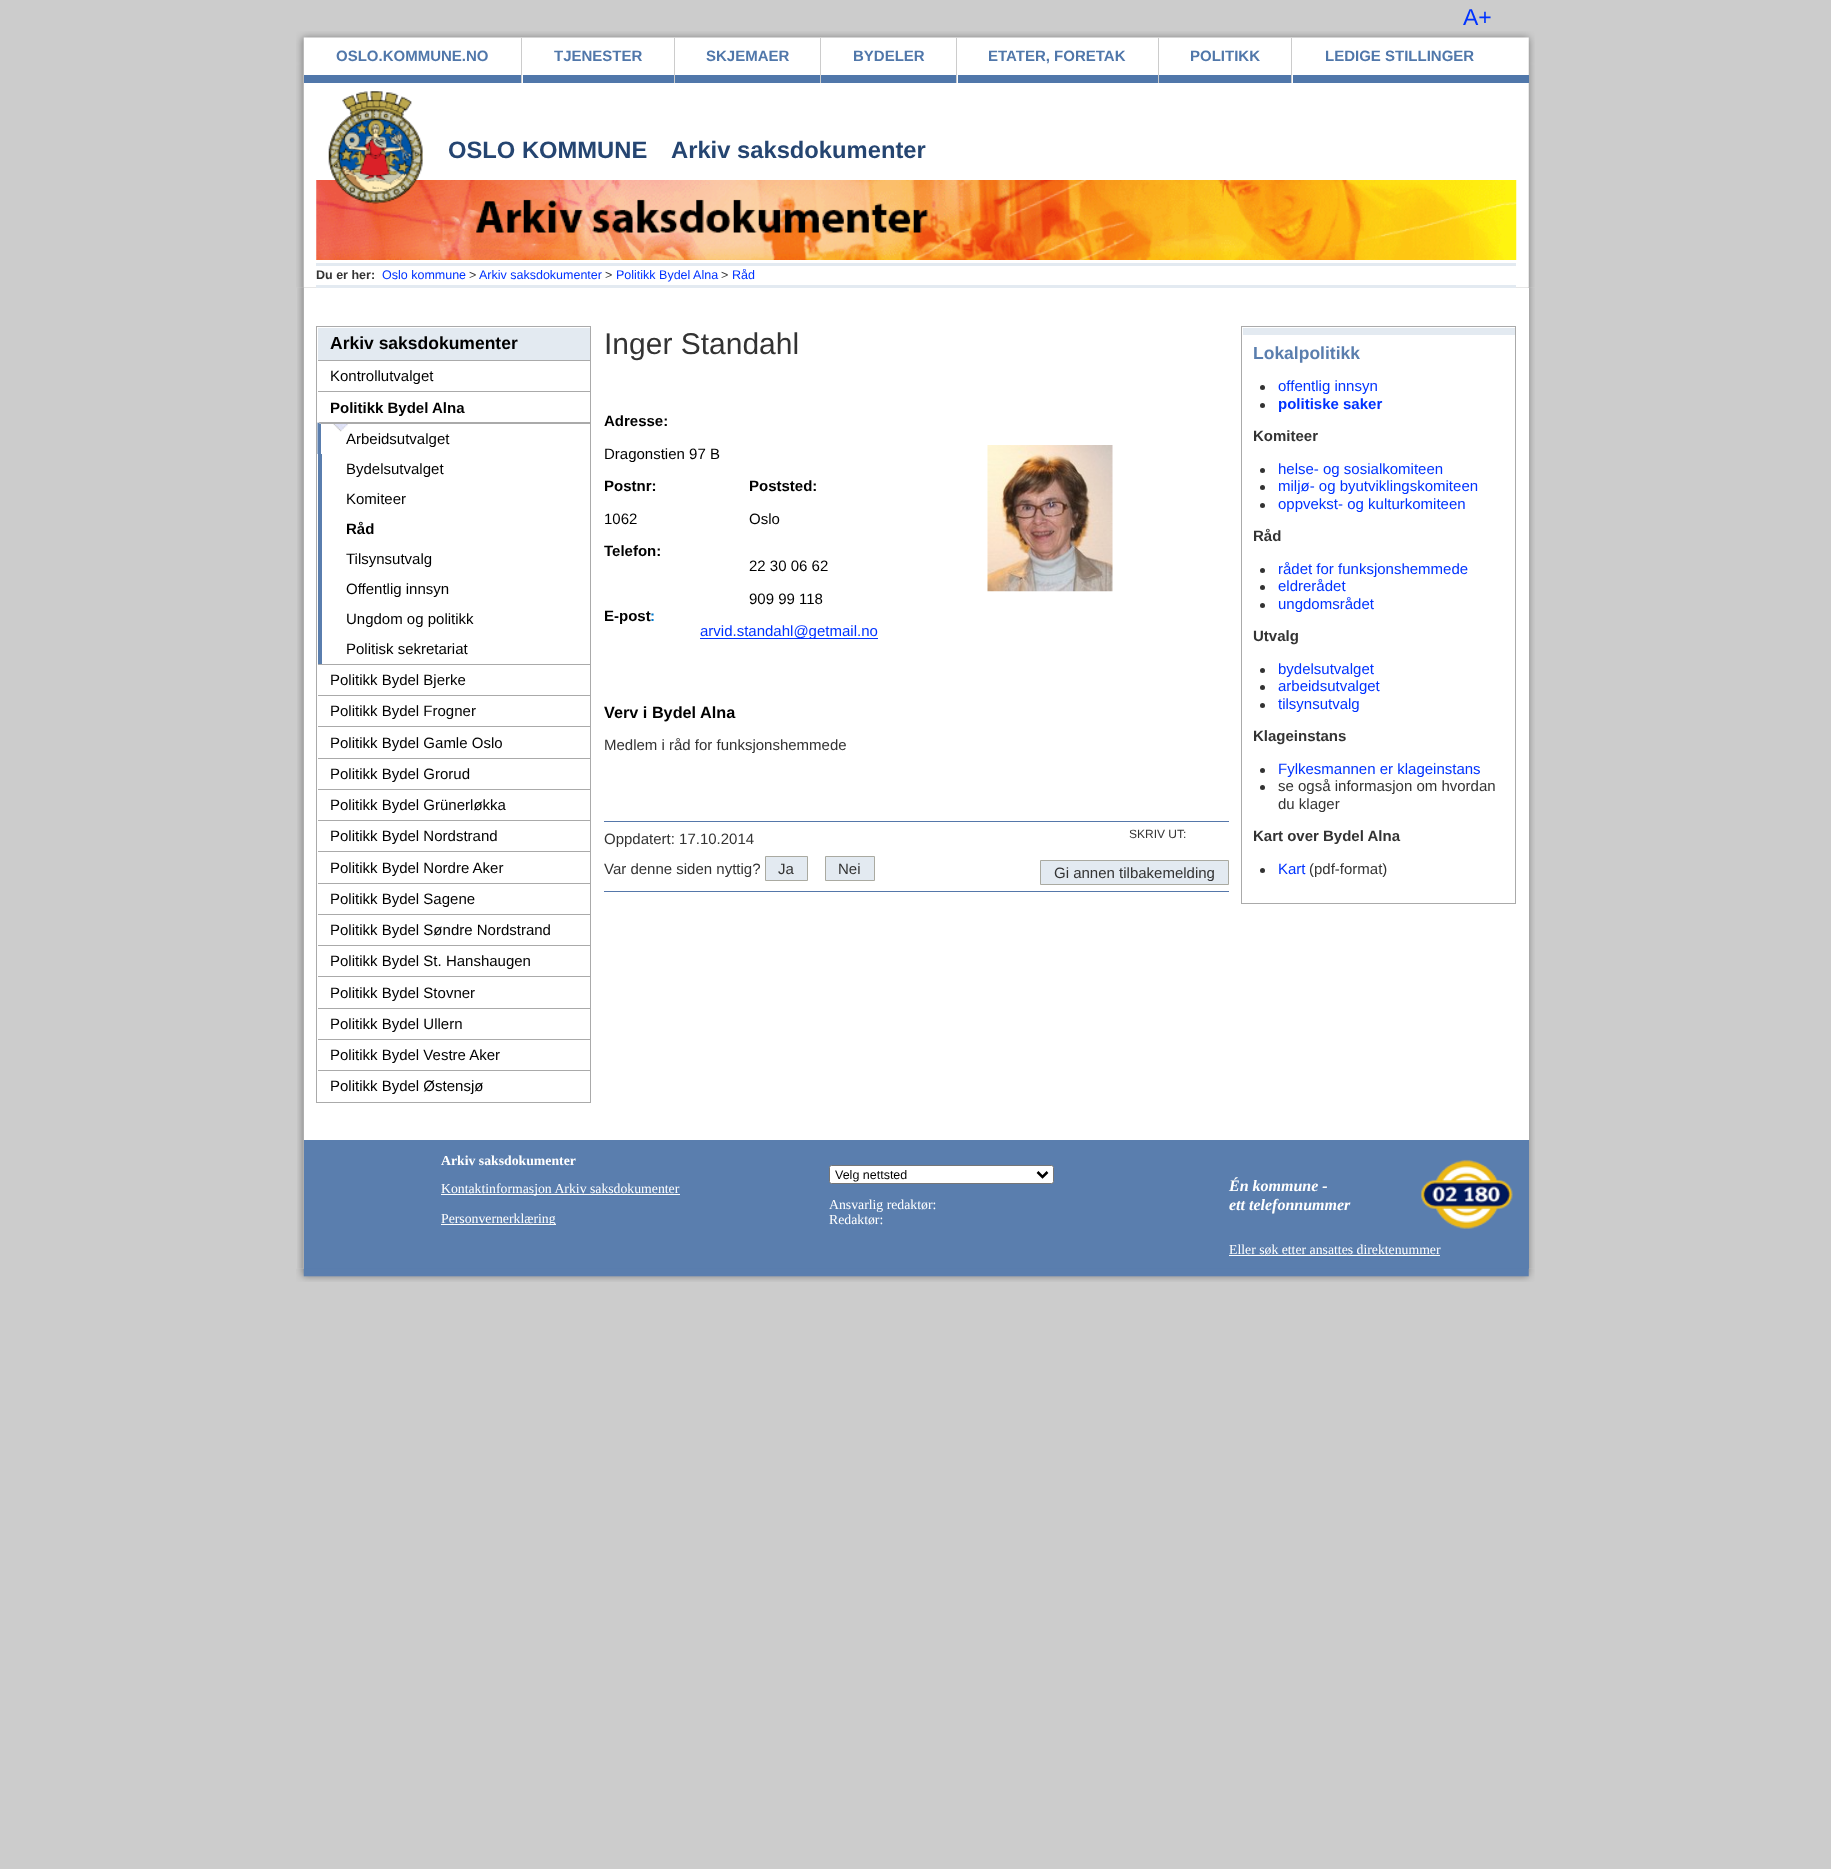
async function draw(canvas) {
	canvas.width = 1831;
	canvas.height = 1869;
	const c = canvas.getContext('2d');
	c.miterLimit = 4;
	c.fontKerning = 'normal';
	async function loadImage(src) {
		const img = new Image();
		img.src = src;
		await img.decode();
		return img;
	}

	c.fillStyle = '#ccc';
	c.fillRect(0, 0, 1831, 1869);
	c.drawImage(await loadImage('img1.png'), 296, 31, 1239, 257);
	c.font = '23px Liberation Sans';
	c.fillStyle = '#03f';
	c.fillText('A+', 1463, 25);
	c.drawImage(await loadImage('img3.png'), 316, 180, 1201, 80);
	c.drawImage(await loadImage('img2.png'), 328, 91, 95, 113);
	c.font = 'bold 23.75px Liberation Sans';
	c.fillStyle = '#254571';
	c.fillText('OSLO KOMMUNE', 448, 158);
	c.fillText('Arkiv saksdokumenter', 671, 158);
	for (const [x, y, w, h, color] of [
		[316, 263, 1200, 3, '#e3eaf1'],
		[1293, 75, 236, 8, '#5077aa'],
		[521, 38, 1, 45, '#ccc'],
		[304, 75, 217, 8, '#5077aa'],
	]) {
		c.fillStyle = color;
		c.fillRect(x, y, w, h);
	}
	c.font = 'bold 15px Liberation Sans';
	c.fillText('OSLO.KOMMUNE.NO', 336, 61);
	c.fillStyle = '#ccc';
	c.fillRect(674, 38, 1, 45);
	c.fillStyle = '#5077aa';
	c.fillRect(523, 75, 151, 8);
	c.fillText('TJENESTER', 554, 61);
	c.fillStyle = '#ccc';
	c.fillRect(820, 38, 1, 45);
	c.fillStyle = '#5077aa';
	c.fillRect(675, 75, 145, 8);
	c.fillText('SKJEMAER', 706, 61);
	c.fillStyle = '#ccc';
	c.fillRect(956, 38, 1, 45);
	c.fillStyle = '#5077aa';
	c.fillRect(821, 75, 135, 8);
	c.fillText('BYDELER', 853, 61);
	c.fillStyle = '#ccc';
	c.fillRect(1158, 38, 1, 45);
	c.fillStyle = '#5077aa';
	c.fillRect(958, 75, 200, 8);
	c.fillText('ETATER, FORETAK', 988, 61);
	c.fillStyle = '#ccc';
	c.fillRect(1291, 38, 1, 45);
	c.fillStyle = '#5077aa';
	c.fillRect(1159, 75, 132, 8);
	c.fillText('POLITIKK', 1190, 61);
	c.fillText('LEDIGE STILLINGER', 1325, 61);
	c.fillStyle = '#e3eaf1';
	c.fillRect(316, 285, 1200, 3);
	c.font = 'bold 12.5px Liberation Sans';
	c.fillStyle = '#333';
	c.fillText('Du er her:', 316, 279);
	c.font = '12.5px Liberation Sans';
	c.fillStyle = '#03f';
	c.fillText('Oslo kommune', 382, 279);
	c.fillStyle = '#333';
	c.fillText('>', 469, 279);
	c.fillStyle = '#03f';
	c.fillText('Arkiv saksdokumenter', 479, 279);
	c.fillStyle = '#333';
	c.fillText('>', 605, 279);
	c.fillStyle = '#03f';
	c.fillText('Politikk Bydel Alna', 616, 279);
	c.fillStyle = '#333';
	c.fillText('>', 721, 279);
	c.fillStyle = '#03f';
	c.fillText('Råd', 732, 279);
	c.drawImage(await loadImage('img4.png'), 297, 287, 7, 982);
	c.drawImage(await loadImage('img5.png'), 1528, 287, 7, 982);
	c.fillStyle = '#fff';
	c.fillRect(304, 288, 1225, 852);
	c.strokeStyle = '#aaa';
	c.strokeRect(316.5, 326.5, 274, 776);
	c.fillStyle = '#e3eaf1';
	c.fillRect(318, 328, 272, 32);
	c.font = 'bold 17.5px Liberation Sans';
	c.fillStyle = '#000';
	c.fillText('Arkiv saksdokumenter', 330, 349);
	c.fillStyle = '#aaa';
	c.fillRect(318, 360, 272, 1);
	c.font = '15px Liberation Sans';
	c.fillStyle = '#000';
	c.fillText('Kontrollutvalget', 330, 381);
	c.fillStyle = '#aaa';
	c.fillRect(318, 391, 272, 1);
	c.font = 'bold 15px Liberation Sans';
	c.fillStyle = '#000';
	c.fillText('Politikk Bydel Alna', 330, 413);
	c.drawImage(await loadImage('img6.png'), 333, 424, 15, 8);
	c.fillStyle = '#aaa';
	c.beginPath();
	c.moveTo(318, 422);
	c.lineTo(590, 422);
	c.lineTo(590, 424);
	c.lineTo(321, 424);
	c.closePath();
	c.fill();
	c.fillStyle = '#5a7eae';
	c.beginPath();
	c.moveTo(317.5, 454);
	c.lineTo(317.5, 422.5);
	c.lineTo(321, 424);
	c.lineTo(321, 454);
	c.closePath();
	c.fill();
	c.font = '15px Liberation Sans';
	c.fillStyle = '#000';
	c.fillText('Arbeidsutvalget', 346, 444);
	c.fillStyle = '#5a7eae';
	c.fillRect(318, 454, 4, 210);
	c.fillStyle = '#000';
	c.fillText('Bydelsutvalget', 346, 474);
	c.fillText('Komiteer', 346, 504);
	c.font = 'bold 15px Liberation Sans';
	c.fillText('Råd', 346, 534);
	c.font = '15px Liberation Sans';
	for (const [text, x, y] of [
		['Tilsynsutvalg', 346, 564],
		['Offentlig innsyn', 346, 594],
		['Ungdom og politikk', 346, 624],
		['Politisk sekretariat', 346, 654],
	]) {
		c.fillText(text, x, y);
	}
	c.fillStyle = '#aaa';
	c.fillRect(318, 664, 272, 1);
	c.fillStyle = '#000';
	c.fillText('Politikk Bydel Bjerke', 330, 685);
	c.fillStyle = '#aaa';
	c.fillRect(318, 695, 272, 1);
	c.fillStyle = '#000';
	c.fillText('Politikk Bydel Frogner', 330, 716);
	c.fillStyle = '#aaa';
	c.fillRect(318, 726, 272, 1);
	c.fillStyle = '#000';
	c.fillText('Politikk Bydel Gamle Oslo', 330, 748);
	c.fillStyle = '#aaa';
	c.fillRect(318, 758, 272, 1);
	c.fillStyle = '#000';
	c.fillText('Politikk Bydel Grorud', 330, 779);
	c.fillStyle = '#aaa';
	c.fillRect(318, 789, 272, 1);
	c.fillStyle = '#000';
	c.fillText('Politikk Bydel Grünerløkka', 330, 810);
	c.fillStyle = '#aaa';
	c.fillRect(318, 820, 272, 1);
	c.fillStyle = '#000';
	c.fillText('Politikk Bydel Nordstrand', 330, 841);
	c.fillStyle = '#aaa';
	c.fillRect(318, 851, 272, 1);
	c.fillStyle = '#000';
	c.fillText('Politikk Bydel Nordre Aker', 330, 873);
	c.fillStyle = '#aaa';
	c.fillRect(318, 883, 272, 1);
	c.fillStyle = '#000';
	c.fillText('Politikk Bydel Sagene', 330, 904);
	c.fillStyle = '#aaa';
	c.fillRect(318, 914, 272, 1);
	c.fillStyle = '#000';
	c.fillText('Politikk Bydel Søndre Nordstrand', 330, 935);
	c.fillStyle = '#aaa';
	c.fillRect(318, 945, 272, 1);
	c.fillStyle = '#000';
	c.fillText('Politikk Bydel St. Hanshaugen', 330, 966);
	c.fillStyle = '#aaa';
	c.fillRect(318, 976, 272, 1);
	c.fillStyle = '#000';
	c.fillText('Politikk Bydel Stovner', 330, 998);
	c.fillStyle = '#aaa';
	c.fillRect(318, 1008, 272, 1);
	c.fillStyle = '#000';
	c.fillText('Politikk Bydel Ullern', 330, 1029);
	c.fillStyle = '#aaa';
	c.fillRect(318, 1039, 272, 1);
	c.fillStyle = '#000';
	c.fillText('Politikk Bydel Vestre Aker', 330, 1060);
	c.fillStyle = '#aaa';
	c.fillRect(318, 1070, 272, 1);
	c.fillStyle = '#000';
	c.fillText('Politikk Bydel Østensjø', 330, 1091);
	c.font = '30px Liberation Sans';
	c.fillStyle = '#333';
	c.fillText('Inger Standahl', 604, 354);
	c.font = 'bold 15px Liberation Sans';
	c.fillStyle = '#000';
	c.fillText('Adresse:', 604, 426);
	c.font = '15px Liberation Sans';
	c.fillText('Dragonstien 97 B', 604, 459);
	c.drawImage(await loadImage('img7.png'), 987, 445, 126, 147);
	c.font = 'bold 15px Liberation Sans';
	c.fillText('Postnr:', 604, 491);
	c.fillText('Poststed:', 749, 491);
	c.font = '15px Liberation Sans';
	c.fillText('1062', 604, 524);
	c.fillText('Oslo', 749, 524);
	c.font = 'bold 15px Liberation Sans';
	c.fillText('Telefon:', 604, 556);
	c.font = '15px Liberation Sans';
	c.fillText('22 30 06 62', 749, 571);
	c.fillText('909 99 118', 749, 604);
	c.font = 'bold 15px Liberation Sans';
	c.fillText('E-post', 604, 621);
	c.fillStyle = '#0078cc';
	c.fillText(':', 650, 621);
	c.fillStyle = '#03f';
	c.fillRect(700, 638, 178, 1);
	c.font = '15px Liberation Sans';
	c.fillText('arvid.standahl@getmail.no', 700, 636);
	c.font = 'bold 16.25px Liberation Sans';
	c.fillStyle = '#000';
	c.fillText('Verv i Bydel Alna', 604, 718);
	c.font = '15px Liberation Sans';
	c.fillStyle = '#333';
	c.fillText('Medlem i råd for funksjonshemmede', 604, 750);
	c.fillStyle = '#57a';
	c.fillRect(604, 821, 625, 1);
	c.fillStyle = '#333';
	c.fillText('Oppdatert: 17.10.2014', 604, 844);
	c.font = '12px Liberation Sans';
	c.fillText('SKRIV UT:', 1129, 838);
	c.font = '15px Liberation Sans';
	c.fillText('Var denne siden nyttig?', 604, 874);
	c.fillStyle = '#e3eaf1';
	c.beginPath();
	c.rect(765.5, 856.5, 42, 24);
	c.fill();
	c.strokeStyle = '#aaaaa1';
	c.stroke();
	c.fillStyle = '#333';
	c.fillText('Ja', 778, 874);
	c.fillStyle = '#e3eaf1';
	c.beginPath();
	c.rect(825.5, 856.5, 49, 24);
	c.fill();
	c.stroke();
	c.fillStyle = '#333';
	c.fillText('Nei', 838, 874);
	c.fillStyle = '#e3eaf1';
	c.beginPath();
	c.rect(1040.5, 860.5, 188, 24);
	c.fill();
	c.stroke();
	c.fillStyle = '#333';
	c.fillText('Gi annen tilbakemelding', 1054, 878);
	c.fillStyle = '#57a';
	c.fillRect(604, 891, 625, 1);
	c.strokeStyle = '#aaa';
	c.strokeRect(1241.5, 326.5, 274, 577);
	c.fillStyle = '#e3eaf1';
	c.fillRect(1243, 328, 272, 7);
	c.font = 'bold 17.5px Liberation Sans';
	c.fillStyle = '#5a7eae';
	c.fillText('Lokalpolitikk', 1253, 359);
	c.fillStyle = '#333';
	c.beginPath();
	c.arc(1262.5, 387.5, 2.5, 0, 2 * Math.PI);
	c.fill();
	c.font = '15px Liberation Sans';
	c.fillStyle = '#03f';
	c.fillText('offentlig innsyn', 1278, 391);
	c.fillStyle = '#333';
	c.beginPath();
	c.arc(1262.5, 405.5, 2.5, 0, 2 * Math.PI);
	c.fill();
	c.font = 'bold 15px Liberation Sans';
	c.fillStyle = '#03f';
	c.fillText('politiske saker', 1278, 409);
	c.fillStyle = '#333';
	c.fillText('Komiteer', 1253, 441);
	c.beginPath();
	c.arc(1262.5, 470.5, 2.5, 0, 2 * Math.PI);
	c.fill();
	c.font = '15px Liberation Sans';
	c.fillStyle = '#03f';
	c.fillText('helse- og sosialkomiteen', 1278, 474);
	c.fillStyle = '#333';
	c.beginPath();
	c.arc(1262.5, 487.5, 2.5, 0, 2 * Math.PI);
	c.fill();
	c.fillStyle = '#03f';
	c.fillText('miljø- og byutviklingskomiteen', 1278, 491);
	c.fillStyle = '#333';
	c.beginPath();
	c.arc(1262.5, 505.5, 2.5, 0, 2 * Math.PI);
	c.fill();
	c.fillStyle = '#03f';
	c.fillText('oppvekst- og kulturkomiteen', 1278, 509);
	c.font = 'bold 15px Liberation Sans';
	c.fillStyle = '#333';
	c.fillText('Råd', 1253, 541);
	c.beginPath();
	c.arc(1262.5, 570.5, 2.5, 0, 2 * Math.PI);
	c.fill();
	c.font = '15px Liberation Sans';
	c.fillStyle = '#03f';
	c.fillText('rådet for funksjonshemmede', 1278, 574);
	c.fillStyle = '#333';
	c.beginPath();
	c.arc(1262.5, 587.5, 2.5, 0, 2 * Math.PI);
	c.fill();
	c.fillStyle = '#03f';
	c.fillText('eldrerådet', 1278, 591);
	c.fillStyle = '#333';
	c.beginPath();
	c.arc(1262.5, 605.5, 2.5, 0, 2 * Math.PI);
	c.fill();
	c.fillStyle = '#03f';
	c.fillText('ungdomsrådet', 1278, 609);
	c.font = 'bold 15px Liberation Sans';
	c.fillStyle = '#333';
	c.fillText('Utvalg', 1253, 641);
	c.beginPath();
	c.arc(1262.5, 670.5, 2.5, 0, 2 * Math.PI);
	c.fill();
	c.font = '15px Liberation Sans';
	c.fillStyle = '#03f';
	c.fillText('bydelsutvalget', 1278, 674);
	c.fillStyle = '#333';
	c.beginPath();
	c.arc(1262.5, 687.5, 2.5, 0, 2 * Math.PI);
	c.fill();
	c.fillStyle = '#03f';
	c.fillText('arbeidsutvalget', 1278, 691);
	c.fillStyle = '#333';
	c.beginPath();
	c.arc(1262.5, 705.5, 2.5, 0, 2 * Math.PI);
	c.fill();
	c.fillStyle = '#03f';
	c.fillText('tilsynsutvalg', 1278, 709);
	c.font = 'bold 15px Liberation Sans';
	c.fillStyle = '#333';
	c.fillText('Klageinstans', 1253, 741);
	c.beginPath();
	c.arc(1262.5, 770.5, 2.5, 0, 2 * Math.PI);
	c.fill();
	c.font = '15px Liberation Sans';
	c.fillStyle = '#03f';
	c.fillText('Fylkesmannen er klageinstans', 1278, 774);
	c.fillStyle = '#333';
	c.beginPath();
	c.arc(1262.5, 787.5, 2.5, 0, 2 * Math.PI);
	c.fill();
	c.fillText('se også informasjon om hvordan', 1278, 791);
	c.fillText('du klager', 1278, 809);
	c.font = 'bold 15px Liberation Sans';
	c.fillText('Kart over Bydel Alna', 1253, 841);
	c.beginPath();
	c.arc(1262.5, 870.5, 2.5, 0, 2 * Math.PI);
	c.fill();
	c.font = '15px Liberation Sans';
	c.fillStyle = '#03f';
	c.fillText('Kart', 1278, 874);
	c.fillStyle = '#333';
	c.fillText('(pdf-format)', 1309, 874);
	c.fillStyle = '#5a7eae';
	c.fillRect(304, 1140, 1225, 129);
	c.font = 'bold 13.75px Liberation Serif';
	c.fillStyle = '#fff';
	c.fillText('Arkiv saksdokumenter', 441, 1165);
	c.fillRect(441, 1194, 239, 1);
	c.font = '13.75px Liberation Serif';
	c.fillText('Kontaktinformasjon Arkiv saksdokumenter', 441, 1193);
	c.fillRect(441, 1224, 115, 1);
	c.save();
	c.beginPath();
	c.rect(441, 1153, 388, 72);
	c.clip();
	c.fillText('Personvernerklæring', 441, 1223);
	c.restore();
	c.beginPath();
	c.roundRect(829.5, 1165.5, 224, 18, 2);
	c.fill();
	c.strokeStyle = '#767676';
	c.stroke();
	c.beginPath();
	c.moveTo(1037.5, 1172);
	c.lineTo(1042.5, 1177);
	c.lineTo(1047.5, 1172);
	c.strokeStyle = '#000';
	c.lineWidth = 2.5;
	c.stroke();
	c.font = '12.5px Liberation Sans';
	c.fillStyle = '#000';
	c.fillText('Velg nettsted', 835, 1179);
	c.font = '13.75px Liberation Serif';
	c.fillStyle = '#fff';
	c.fillText('Ansvarlig redaktør:', 829, 1209);
	c.fillText('Redaktør:', 829, 1224);
	c.font = 'italic bold 16px Liberation Serif';
	c.fillText('Én kommune -', 1229, 1191);
	c.fillText('ett telefonnummer', 1229, 1210);
	c.drawImage(await loadImage('img8.png'), 1421, 1159, 92, 70);
	c.font = '13.75px Liberation Serif';
	c.fillText('Eller søk etter ansattes direktenummer', 1229, 1254);
	c.fillRect(1229, 1255, 211, 1);
	c.drawImage(await loadImage('img9.png'), 296, 1268, 1239, 14);
}

draw(document.querySelector('canvas'));
